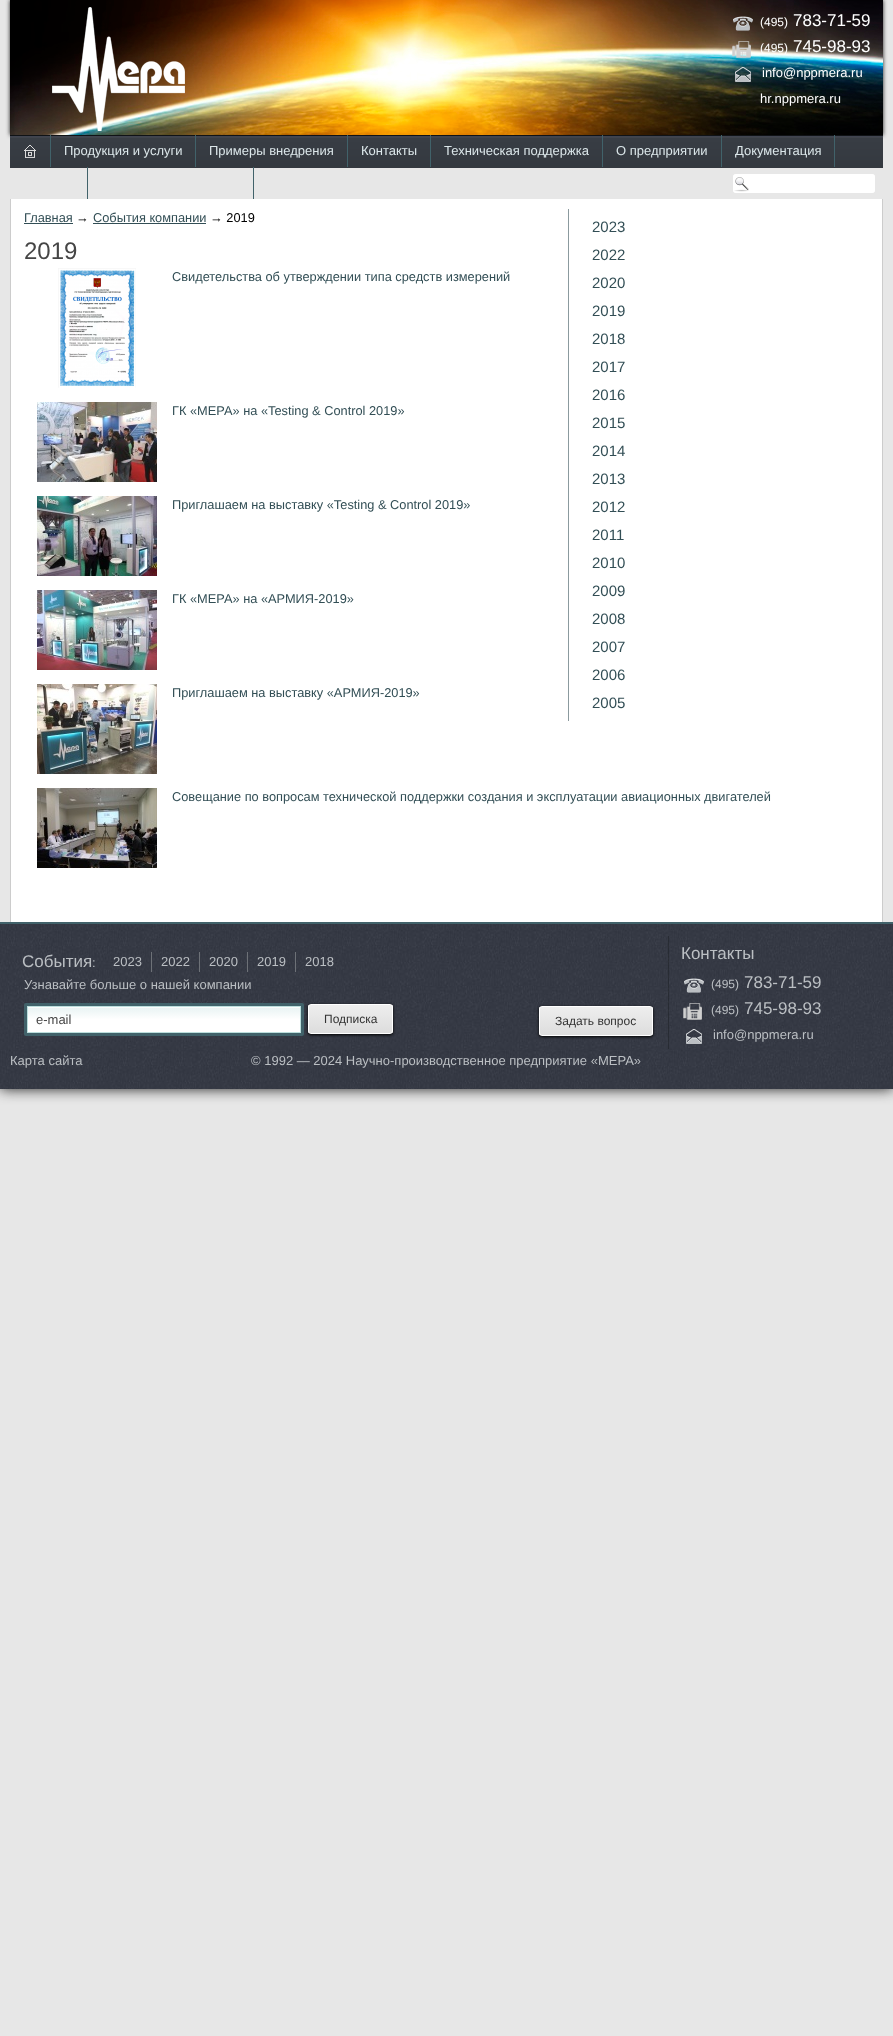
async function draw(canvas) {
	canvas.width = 893;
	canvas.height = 2036;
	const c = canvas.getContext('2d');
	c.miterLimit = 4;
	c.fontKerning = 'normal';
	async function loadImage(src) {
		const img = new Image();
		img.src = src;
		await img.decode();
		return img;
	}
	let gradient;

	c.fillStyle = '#e7e7e7';
	c.fillRect(0, 0, 893, 2036);
	c.fillStyle = '#222';
	c.filter = 'blur(7px)';
	c.beginPath();
	c.rect(0, 922, 893, 167);
	c.fill();
	c.filter = 'none';
	c.fillStyle = '#e7e7e7';
	c.fillRect(0, 906, 893, 16);
	c.fillStyle = '#222';
	c.filter = 'blur(2px)';
	c.beginPath();
	c.rect(10, 0, 873, 135);
	c.fill();
	c.filter = 'none';
	c.drawImage(await loadImage('img1.png'), 10, 0, 873, 135);
	c.drawImage(await loadImage('img2.png'), 52, 7, 133, 124);
	c.drawImage(await loadImage('img3.png'), 733, 16, 20, 15);
	c.font = '12px Liberation Sans';
	c.fillStyle = '#fff';
	c.fillText('(495)', 760, 26);
	c.font = '17px Liberation Sans';
	c.fillText('783-71-59', 793, 26);
	c.drawImage(await loadImage('img4.png'), 732, 41, 19, 17);
	c.font = '12px Liberation Sans';
	c.fillText('(495)', 760, 52);
	c.font = '17px Liberation Sans';
	c.fillText('745-98-93', 793, 52);
	c.drawImage(await loadImage('img5.png'), 735, 67, 16, 15);
	c.font = '13px Liberation Sans';
	c.fillText('info@nppmera.ru', 762, 77);
	c.fillText('hr.nppmera.ru', 760, 103);
	c.drawImage(await loadImage('img6.png'), 10, 135, 873, 33);
	c.fillStyle = '#41626a';
	c.fillRect(50, 135, 1, 32);
	c.drawImage(await loadImage('img7.png'), 24, 145, 12, 13);
	c.fillRect(195, 135, 1, 32);
	c.fillStyle = '#dce7ea';
	c.fillText('Продукция и услуги', 64, 155);
	c.fillStyle = '#41626a';
	c.fillRect(347, 135, 1, 32);
	c.fillStyle = '#dce7ea';
	c.fillText('Примеры внедрения', 209, 155);
	c.fillStyle = '#41626a';
	c.fillRect(430, 135, 1, 32);
	c.fillStyle = '#dce7ea';
	c.fillText('Контакты', 361, 155);
	c.fillStyle = '#41626a';
	c.fillRect(602, 135, 1, 32);
	c.fillStyle = '#dce7ea';
	c.fillText('Техническая поддержка', 444, 155);
	c.fillStyle = '#41626a';
	c.fillRect(721, 135, 1, 32);
	c.fillStyle = '#dce7ea';
	c.fillText('О предприятии', 616, 155);
	c.fillStyle = '#41626a';
	c.fillRect(834, 135, 1, 32);
	c.fillStyle = '#dce7ea';
	c.fillText('Документация', 735, 155);
	c.fillStyle = '#41626a';
	c.fillRect(87, 167, 1, 32);
	c.fillRect(253, 167, 1, 32);
	c.fillStyle = '#fff';
	c.beginPath();
	c.roundRect(733, 174, 142, 19, 3);
	c.fill();
	c.drawImage(await loadImage('img8.png'), 734, 177, 15, 15);
	c.beginPath();
	c.roundRect(733.5, 174.5, 141, 18, 2.5);
	c.strokeStyle = '#fff';
	c.stroke();
	for (const [x, y, w, h, color] of [
		[11, 199, 871, 723, '#fff'],
		[882, 199, 1, 723, '#ccc'],
		[10, 199, 1, 723, '#ccc'],
	]) {
		c.fillStyle = color;
		c.fillRect(x, y, w, h);
	}
	c.font = '12.8px Liberation Sans';
	c.fillStyle = '#324e55';
	c.fillText('Главная', 24, 222);
	c.fillRect(24, 223, 49, 1);
	c.fillStyle = '#000';
	c.fillText('→', 76, 222);
	c.fillStyle = '#324e55';
	c.fillText('События компании', 93, 222);
	c.fillRect(93, 223, 113, 1);
	c.fillStyle = '#000';
	c.fillText('→ 2019', 210, 222);
	c.font = '24px Liberation Sans';
	c.fillStyle = '#454545';
	c.fillText('2019', 24, 259);
	c.fillStyle = '#8b9a9e';
	c.fillRect(568, 209, 1, 512);
	c.font = '15px Liberation Sans';
	c.fillStyle = '#324e55';
	for (const [text, x, y] of [
		['2023', 592, 232],
		['2022', 592, 260],
		['2020', 592, 288],
		['2019', 592, 316],
		['2018', 592, 344],
		['2017', 592, 372],
		['2016', 592, 400],
		['2015', 592, 428],
		['2014', 592, 456],
		['2013', 592, 484],
		['2012', 592, 512],
		['2011', 592, 540],
		['2010', 592, 568],
		['2009', 592, 596],
		['2008', 592, 624],
		['2007', 592, 652],
		['2006', 592, 680],
		['2005', 592, 708],
	]) {
		c.fillText(text, x, y);
	}
	c.drawImage(await loadImage('img9.png'), 58, 268, 78, 120);
	c.font = '12.8px Liberation Sans';
	c.fillText('Свидетельства об утверждении типа средств измерений', 172, 281);
	c.drawImage(await loadImage('img10.png'), 37, 402, 120, 80);
	c.fillText('ГК «МЕРА» на «Testing & Control 2019»', 172, 415);
	c.drawImage(await loadImage('img11.png'), 37, 496, 120, 80);
	c.fillText('Приглашаем на выставку «Testing & Control 2019»', 172, 509);
	c.drawImage(await loadImage('img12.png'), 37, 590, 120, 80);
	c.fillText('ГК «МЕРА» на «АРМИЯ-2019»', 172, 603);
	c.drawImage(await loadImage('img13.png'), 37, 684, 120, 90);
	c.fillText('Приглашаем на выставку «АРМИЯ-2019»', 172, 697);
	c.drawImage(await loadImage('img14.png'), 37, 788, 120, 80);
	c.fillText('Совещание по вопросам технической поддержки создания и эксплуатации авиационных двигателей', 172, 801);
	c.drawImage(await loadImage('img15.png'), 0, 924, 893, 165);
	c.fillStyle = '#41626a';
	c.fillRect(0, 922, 893, 2);
	c.font = '17px Liberation Sans';
	c.fillStyle = '#bbbfc3';
	c.fillText('События', 22, 967);
	c.font = '13px Liberation Sans';
	c.fillText(':', 92, 967);
	c.fillStyle = '#6d7177';
	c.fillRect(151, 952, 1, 20);
	c.fillStyle = '#bbbfc3';
	c.fillText('2023', 113, 966);
	c.fillStyle = '#6d7177';
	c.fillRect(199, 952, 1, 20);
	c.fillStyle = '#bbbfc3';
	c.fillText('2022', 161, 966);
	c.fillStyle = '#6d7177';
	c.fillRect(247, 952, 1, 20);
	c.fillStyle = '#bbbfc3';
	c.fillText('2020', 209, 966);
	c.fillStyle = '#6d7177';
	c.fillRect(295, 952, 1, 20);
	c.fillStyle = '#bbbfc3';
	for (const [text, x, y] of [
		['2019', 257, 966],
		['2018', 305, 966],
		['Узнавайте больше о нашей компании', 24, 989],
	]) {
		c.fillText(text, x, y);
	}
	c.fillStyle = '#41626a';
	c.beginPath();
	c.roundRect(24, 1003, 280, 33, 2);
	c.fill();
	gradient = c.createLinearGradient(28, 1007, 28, 1032);
	gradient.addColorStop(0.01, '#fefefe');
	gradient.addColorStop(0.05, '#eaf4f4');
	gradient.addColorStop(0.5, '#fff');
	c.fillStyle = gradient;
	c.fillRect(28, 1007, 272, 25);
	c.strokeStyle = '#bcdedc';
	c.strokeRect(27.5, 1006.5, 273, 26);
	c.fillStyle = '#454545';
	c.fillText('e-mail', 36, 1024);
	c.fillStyle = '#000';
	c.filter = 'blur(1.5px)';
	c.beginPath();
	c.roundRect(308, 1005, 85, 30, 3);
	c.fill();
	c.filter = 'none';
	c.save();
	c.beginPath();
	c.roundRect(308, 1004, 85, 30, 3);
	c.clip();
	gradient = c.createLinearGradient(309, 1005, 309, 1033);
	gradient.addColorStop(0, '#eee');
	gradient.addColorStop(1, '#ddd');
	c.fillStyle = gradient;
	c.fillRect(308, 1005, 85, 28);
	c.restore();
	c.beginPath();
	c.roundRect(308.5, 1004.5, 84, 29, 2.5);
	c.strokeStyle = '#fff';
	c.stroke();
	c.font = '12px Liberation Sans';
	c.fillStyle = '#333';
	c.fillText('Подписка', 324, 1023);
	c.fillStyle = '#000';
	c.filter = 'blur(1.5px)';
	c.beginPath();
	c.roundRect(539, 1007, 114, 30, 3);
	c.fill();
	c.filter = 'none';
	c.save();
	c.beginPath();
	c.roundRect(539, 1006, 114, 30, 3);
	c.clip();
	gradient = c.createLinearGradient(540, 1007, 540, 1035);
	gradient.addColorStop(0, '#eee');
	gradient.addColorStop(1, '#ddd');
	c.fillStyle = gradient;
	c.fillRect(539, 1007, 114, 28);
	c.restore();
	c.beginPath();
	c.roundRect(539.5, 1006.5, 113, 29, 2.5);
	c.stroke();
	c.fillStyle = '#333';
	c.fillText('Задать вопрос', 555, 1025);
	c.drawImage(await loadImage('img16.png'), 668, 936, 1, 113);
	c.font = '17px Liberation Sans';
	c.fillStyle = '#bbbfc3';
	c.fillText('Контакты', 681, 959);
	c.drawImage(await loadImage('img17.png'), 684, 978, 20, 15);
	c.font = '12px Liberation Sans';
	c.fillText('(495)', 711, 988);
	c.font = '17px Liberation Sans';
	c.fillText('783-71-59', 744, 988);
	c.drawImage(await loadImage('img18.png'), 683, 1003, 19, 17);
	c.font = '12px Liberation Sans';
	c.fillText('(495)', 711, 1014);
	c.font = '17px Liberation Sans';
	c.fillText('745-98-93', 744, 1014);
	c.drawImage(await loadImage('img19.png'), 686, 1029, 16, 15);
	c.font = '13px Liberation Sans';
	for (const [text, x, y] of [
		['info@nppmera.ru', 713, 1039],
		['Карта сайта', 10, 1065],
		['© 1992 — 2024 Научно-производственное предприятие «МЕРА»', 251, 1065],
	]) {
		c.fillText(text, x, y);
	}
}

draw(document.querySelector('canvas'));
